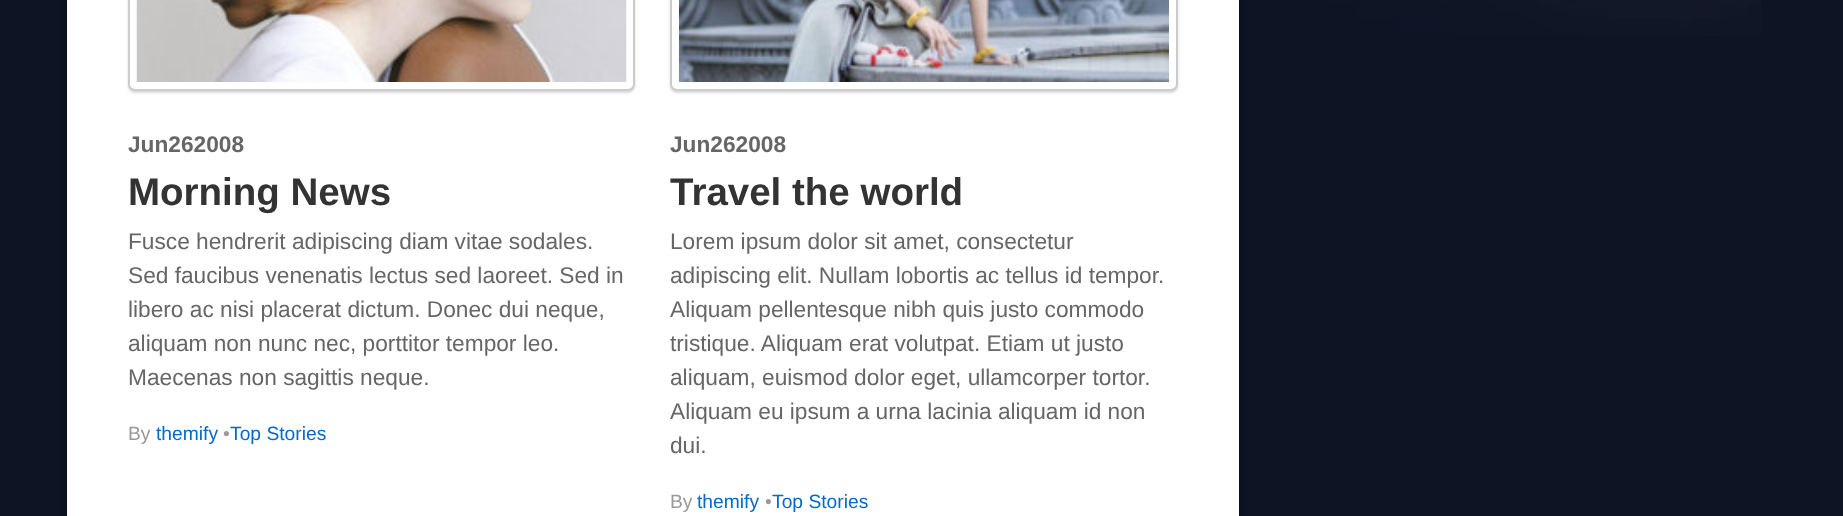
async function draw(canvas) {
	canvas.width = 1843;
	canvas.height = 516;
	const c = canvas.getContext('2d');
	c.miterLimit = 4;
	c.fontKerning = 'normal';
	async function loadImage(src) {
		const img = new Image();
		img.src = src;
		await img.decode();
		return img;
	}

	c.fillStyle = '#0d1424';
	c.fillRect(0, 0, 1843, 516);
	c.drawImage(await loadImage('img1.png'), 1239, 0, 522, 36);
	c.fillStyle = '#00000066';
	c.filter = 'blur(2.5px)';
	c.beginPath();
	c.roundRect(67, -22, 1172, 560, 14);
	c.fill();
	c.filter = 'none';
	c.fillStyle = '#fff';
	c.fillRect(67, 0, 1172, 516);
	c.fillStyle = '#00000026';
	c.filter = 'blur(1px)';
	c.beginPath();
	c.roundRect(128, -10, 507, 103, 7);
	c.fill();
	c.filter = 'none';
	c.fillStyle = '#fff';
	c.beginPath();
	c.roundRect(129, -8, 505, 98, 6);
	c.fill();
	c.strokeStyle = '#ccc';
	c.lineWidth = 2;
	c.stroke();
	c.drawImage(await loadImage('img2.png'), 136, 0, 491, 82);
	c.font = 'bold 22.7px Liberation Sans';
	c.fillStyle = '#666';
	c.fillText('Jun262008', 128, 152);
	c.font = 'bold 38.5px Liberation Sans';
	c.fillStyle = '#333';
	c.fillText('Morning News', 128, 205);
	c.font = '22.7px Liberation Sans';
	c.fillStyle = '#666';
	for (const [text, x, y] of [
		['Fusce hendrerit adipiscing diam vitae sodales.', 128, 249],
		['Sed faucibus venenatis lectus sed laoreet. Sed in', 128, 283],
		['libero ac nisi placerat dictum. Donec dui neque,', 128, 317],
		['aliquam non nunc nec, porttitor tempor leo.', 128, 351],
		['Maecenas non sagittis neque.', 128, 385],
	]) {
		c.fillText(text, x, y);
	}
	c.font = '19.25px Liberation Sans';
	c.fillStyle = '#999';
	c.fillText('By', 128, 440);
	c.fillStyle = '#026acb';
	c.fillText('themify', 156, 440);
	c.fillStyle = '#999';
	c.fillText('•', 223, 440);
	c.fillStyle = '#026acb';
	c.fillText('Top Stories', 230, 440);
	c.fillStyle = '#00000026';
	c.filter = 'blur(1px)';
	c.beginPath();
	c.roundRect(670, -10, 508, 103, 7);
	c.fill();
	c.filter = 'none';
	c.fillStyle = '#fff';
	c.beginPath();
	c.roundRect(671, -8, 506, 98, 6);
	c.fill();
	c.stroke();
	c.drawImage(await loadImage('img3.png'), 679, 0, 490, 82);
	c.font = 'bold 22.7px Liberation Sans';
	c.fillStyle = '#666';
	c.fillText('Jun262008', 670, 152);
	c.font = 'bold 38.5px Liberation Sans';
	c.fillStyle = '#333';
	c.fillText('Travel the world', 670, 205);
	c.font = '22.7px Liberation Sans';
	c.fillStyle = '#666';
	for (const [text, x, y] of [
		['Lorem ipsum dolor sit amet, consectetur', 670, 249],
		['adipiscing elit. Nullam lobortis ac tellus id tempor.', 670, 283],
		['Aliquam pellentesque nibh quis justo commodo', 670, 317],
		['tristique. Aliquam erat volutpat. Etiam ut justo', 670, 351],
		['aliquam, euismod dolor eget, ullamcorper tortor.', 670, 385],
		['Aliquam eu ipsum a urna lacinia aliquam id non', 670, 419],
		['dui.', 670, 453],
	]) {
		c.fillText(text, x, y);
	}
	c.font = '19.25px Liberation Sans';
	c.fillStyle = '#999';
	c.fillText('By', 670, 508);
	c.fillStyle = '#026acb';
	c.fillText('themify', 697, 508);
	c.fillStyle = '#999';
	c.fillText('•', 765, 508);
	c.fillStyle = '#026acb';
	c.fillText('Top Stories', 772, 508);
}

draw(document.querySelector('canvas'));
